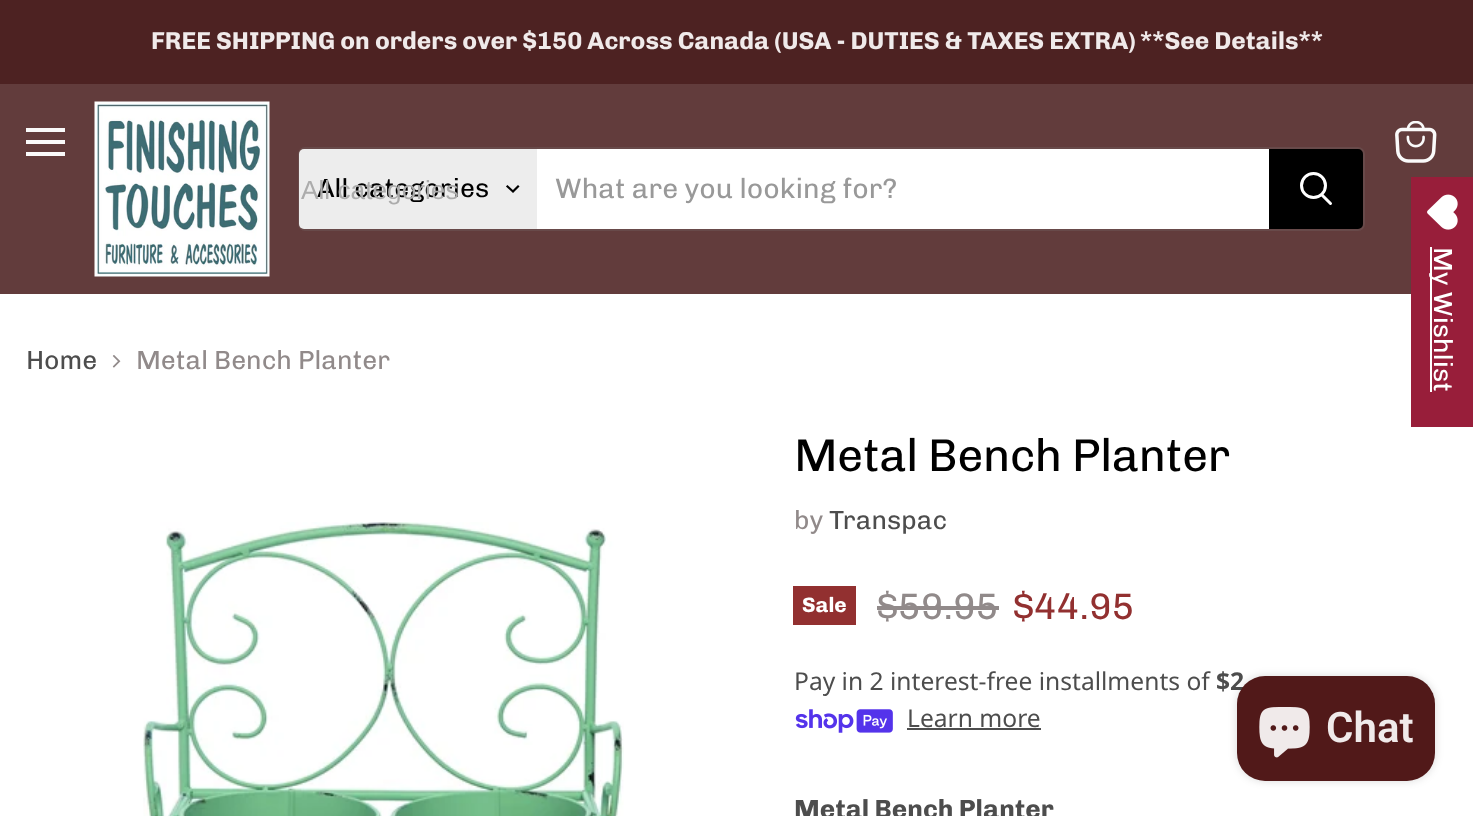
async function draw(canvas) {
	canvas.width = 1473;
	canvas.height = 816;
	const c = canvas.getContext('2d');
	c.miterLimit = 4;
	c.fontKerning = 'normal';
	async function loadImage(src) {
		const img = new Image();
		img.src = src;
		await img.decode();
		return img;
	}

	c.fillStyle = '#fff';
	c.fillRect(0, 0, 1473, 816);
	c.fillStyle = '#4d2222';
	c.fillRect(0, 0, 1473, 84);
	c.font = 'bold 24.6px Chivo';
	c.fillStyle = '#f0eaea';
	c.fillText('FREE SHIPPING on orders over $150 Across Canada (USA - DUTIES & TAXES EXTRA)', 151, 49);
	c.fillText('**See Details**', 1140, 49);
	for (const [x, y, w, h, color] of [
		[0, 84, 1473, 210, '#623c3c'],
		[26, 128, 39, 4, '#fafafa'],
		[26, 140, 39, 4, '#fafafa'],
		[26, 152, 39, 4, '#fafafa'],
	]) {
		c.fillStyle = color;
		c.fillRect(x, y, w, h);
	}
	c.drawImage(await loadImage('img1.png'), 1395, 121, 42, 42);
	c.drawImage(await loadImage('img2.png'), 94, 101, 176, 176);
	c.beginPath();
	c.roundRect(299, 148, 1065, 82, 6);
	c.strokeStyle = '#80808033';
	c.lineWidth = 2;
	c.stroke();
	c.fillStyle = '#ededed';
	c.beginPath();
	c.roundRect(299, 149, 238, 80, [5, 0, 0, 5]);
	c.fill();
	c.font = '26.25px Chivo';
	c.fillStyle = '#000';
	c.fillText('All categories', 317, 197);
	c.font = '26.25px Liberation Sans';
	c.fillStyle = '#acacac';
	c.fillText('All categories', 301, 199);
	c.beginPath();
	c.moveTo(513, 191.5);
	c.lineTo(518, 186.5);
	c.moveTo(513, 191.5);
	c.lineTo(507.5, 186.5);
	c.strokeStyle = '#000';
	c.lineWidth = 2.2;
	c.lineCap = 'square';
	c.stroke();
	c.fillStyle = '#fff';
	c.fillRect(537, 149, 732, 80);
	c.font = '28px Chivo';
	c.fillStyle = '#999';
	c.fillText('What are you looking for?', 555, 198);
	c.fillStyle = '#000';
	c.beginPath();
	c.roundRect(1270, 150, 92, 78, [0, 4, 4, 0]);
	c.fill();
	c.lineWidth = 2;
	c.stroke();
	c.beginPath();
	c.moveTo(1330.5, 203.5);
	c.lineTo(1322, 195);
	c.strokeStyle = '#fff';
	c.lineWidth = 3;
	c.lineCap = 'round';
	c.stroke();
	c.beginPath();
	c.arc(1313.5, 185.5, 12, 0, 2 * Math.PI);
	c.stroke();
	c.fillStyle = '#981e3a';
	c.fillRect(1411, 177, 62, 250);
	c.drawImage(await loadImage('img3.png'), 1427, 194, 31, 36);
	c.fillStyle = '#fff';
	c.fillRect(1430, 247, 2, 145);
	c.font = '26.25px Chivo';
	c.save();
	c.translate(1434, 247);
	c.rotate(90 * Math.PI / 180);
	c.fillText('My Wishlist', 0, 0);
	c.restore();
	c.fillStyle = '#4d4d4d';
	c.fillText('Home', 26, 369);
	c.drawImage(await loadImage('img4.png'), 112, 355, 9, 13);
	c.fillStyle = '#918a8a';
	c.fillText('Metal Bench Planter', 136, 369);
	c.drawImage(await loadImage('img5.png'), 143, 522, 481, 294);
	c.letterSpacing = '-0.5px';
	c.font = '46px Chivo';
	c.fillStyle = '#000';
	c.fillText('Metal Bench Planter', 794, 471);
	c.letterSpacing = '0px';
	c.font = '26.25px Chivo';
	c.fillStyle = '#918a8a';
	c.fillText('by', 794, 529);
	c.fillStyle = '#4d4d4d';
	c.fillText('Transpac', 829, 529);
	c.fillStyle = '#923030';
	c.fillRect(793, 586, 63, 39);
	c.font = 'bold 21px Chivo';
	c.fillStyle = '#fff';
	c.fillText('Sale', 802, 612);
	c.font = '37px Chivo';
	c.fillStyle = '#918a8a';
	c.fillText('$59.95', 877, 619);
	c.fillRect(877, 606, 122, 4);
	c.fillStyle = '#923030';
	c.fillText('$44.95', 1013, 619);
	c.font = '24.6px Noto Sans';
	c.fillStyle = '#4d4d4d';
	c.fillText('Pay in 2 interest-free installments of', 794, 690);
	c.font = 'bold 24.6px Noto Sans';
	c.fillText('$2', 1216, 690);
	c.drawImage(await loadImage('img6.png'), 795, 709, 98, 24);
	c.font = '24.6px Noto Sans';
	c.fillText('Learn more', 907, 727);
	c.fillRect(907, 728, 134, 2);
	c.font = 'bold 26.25px Chivo';
	c.fillText('Metal Bench Planter', 794, 818);
	c.fillStyle = '#00000026';
	c.filter = 'blur(4.5px)';
	c.beginPath();
	c.roundRect(1237, 676, 198, 105, 28);
	c.fill();
	c.filter = 'none';
	c.fillStyle = '#511919';
	c.beginPath();
	c.roundRect(1237, 676, 198, 105, 28);
	c.fill();
	c.drawImage(await loadImage('img7.png'), 1259, 707, 51, 51);
	c.font = '600 42px Roboto';
	c.fillStyle = '#f0eaea';
	c.fillText('Chat', 1326, 742);
}

draw(document.querySelector('canvas'));
